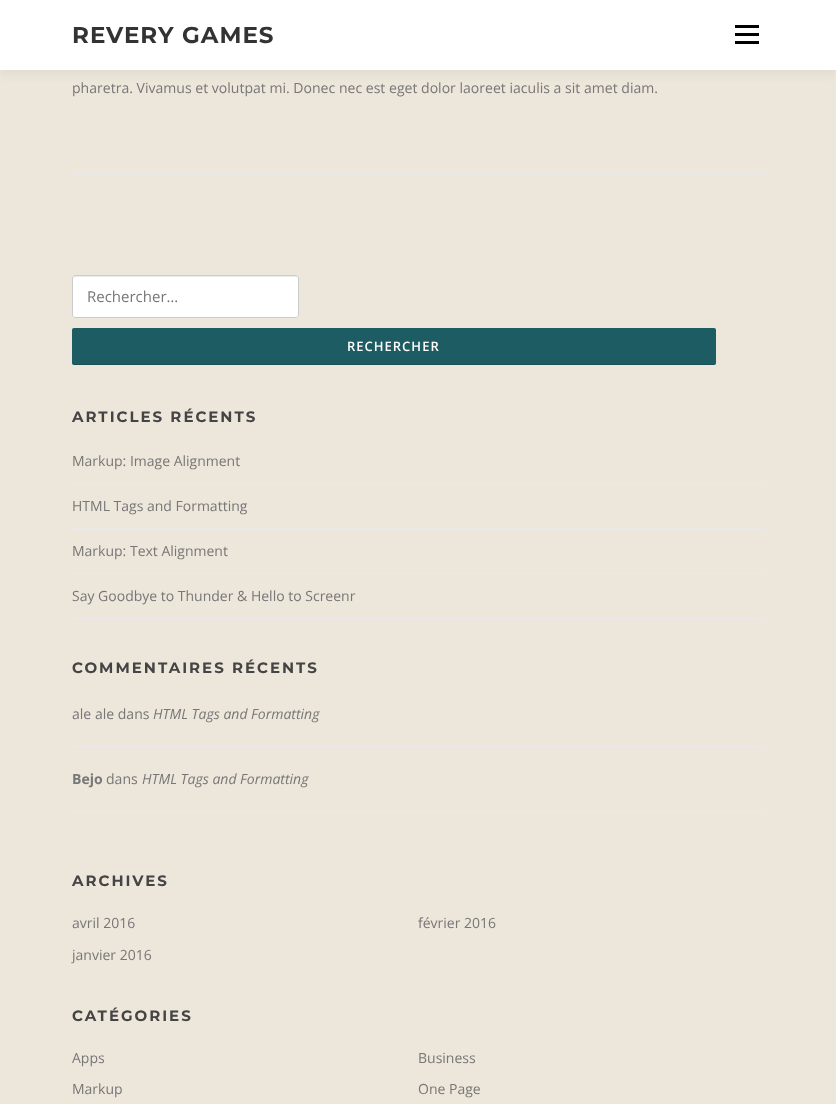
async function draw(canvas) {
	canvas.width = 836;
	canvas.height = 1104;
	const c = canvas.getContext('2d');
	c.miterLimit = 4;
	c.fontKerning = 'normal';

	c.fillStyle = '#ede6db';
	c.fillRect(0, 0, 836, 1104);
	c.fillStyle = '#3232320f';
	c.filter = 'blur(5px)';
	c.beginPath();
	c.rect(0, 5, 836, 70);
	c.fill();
	c.filter = 'none';
	c.fillStyle = '#fff';
	c.fillRect(0, 0, 836, 70);
	c.letterSpacing = '1px';
	c.font = 'bold 23px Montserrat';
	c.fillStyle = '#333';
	c.fillText('REVERY GAMES', 72, 43);
	for (const [x, y, w, h, color] of [
		[735, 33, 24, 3, '#000'],
		[735, 25, 24, 3, '#000'],
		[735, 41, 24, 3, '#000'],
	]) {
		c.fillStyle = color;
		c.fillRect(x, y, w, h);
	}
	c.letterSpacing = '0px';
	c.font = '14.05px Open Sans';
	c.fillStyle = '#777';
	c.fillText('pharetra. Vivamus et volutpat mi. Donec nec est eget dolor laoreet iaculis a sit amet diam.', 72, 93);
	c.fillStyle = '#e9e9e9';
	c.fillRect(72, 174, 692, 1);
	c.fillStyle = '#fff';
	c.beginPath();
	c.roundRect(72, 275, 227, 43, 3);
	c.fill();
	c.fillStyle = '#ebebeb';
	c.beginPath();
	c.moveTo(75, 277);
	c.lineTo(296, 277);
	c.bezierCurveTo(297, 277, 298, 278, 298, 279);
	c.bezierCurveTo(298, 278, 298, 276, 296, 276);
	c.lineTo(74, 276);
	c.bezierCurveTo(73, 277, 73, 278, 73, 279);
	c.bezierCurveTo(73, 278, 74, 277, 75, 277);
	c.closePath();
	c.fill();
	c.beginPath();
	c.roundRect(72.5, 275.5, 226, 42, 2.5);
	c.strokeStyle = '#ccc';
	c.stroke();
	c.font = '15px Open Sans';
	c.fillStyle = '#777';
	c.fillText('Rechercher…', 87, 302);
	c.fillStyle = '#1d5c63';
	c.beginPath();
	c.roundRect(72, 328, 644, 37, 2);
	c.fill();
	c.fillStyle = '#0000001a';
	c.beginPath();
	c.moveTo(72, 362);
	c.bezierCurveTo(72, 363, 72, 365, 74, 365);
	c.lineTo(714, 365);
	c.bezierCurveTo(716, 365, 716, 363, 716, 362);
	c.bezierCurveTo(716, 363, 715, 364, 714, 364);
	c.lineTo(74, 364);
	c.bezierCurveTo(73, 364, 72, 363, 72, 362);
	c.closePath();
	c.fill();
	c.letterSpacing = '1px';
	c.font = '600 13px Open Sans';
	c.fillStyle = '#fff';
	c.fillText('RECHERCHER', 347, 351);
	c.letterSpacing = '2px';
	c.font = 'bold 15px Montserrat';
	c.fillStyle = '#444';
	c.fillText('ARTICLES RÉCENTS', 72, 422);
	c.fillStyle = '#e9e9e9';
	c.fillRect(72, 483, 692, 1);
	c.letterSpacing = '0px';
	c.font = '14px Open Sans';
	c.fillStyle = '#777';
	c.fillText('Markup: Image Alignment', 72, 466);
	c.fillStyle = '#e9e9e9';
	c.fillRect(72, 528, 692, 1);
	c.fillStyle = '#777';
	c.fillText('HTML Tags and Formatting', 72, 511);
	c.fillStyle = '#e9e9e9';
	c.fillRect(72, 573, 692, 1);
	c.fillStyle = '#777';
	c.fillText('Markup: Text Alignment', 72, 556);
	c.fillStyle = '#e9e9e9';
	c.fillRect(72, 618, 692, 1);
	c.fillStyle = '#777';
	c.fillText('Say Goodbye to Thunder & Hello to Screenr', 72, 601);
	c.letterSpacing = '2px';
	c.font = 'bold 15px Montserrat';
	c.fillStyle = '#444';
	c.fillText('COMMENTAIRES RÉCENTS', 72, 673);
	c.fillStyle = '#e9e9e9';
	c.fillRect(72, 746, 692, 1);
	c.letterSpacing = '0px';
	c.font = '14.05px Open Sans';
	c.fillStyle = '#777';
	c.fillText('ale ale dans', 72, 719);
	c.font = 'italic 14px Open Sans';
	c.fillText('HTML Tags and Formatting', 153, 719);
	c.fillStyle = '#e9e9e9';
	c.fillRect(72, 811, 692, 1);
	c.font = 'bold 14px Open Sans';
	c.fillStyle = '#777';
	c.fillText('Bejo', 72, 784);
	c.font = '14.05px Open Sans';
	c.fillText('dans', 106, 784);
	c.font = 'italic 14px Open Sans';
	c.fillText('HTML Tags and Formatting', 142, 784);
	c.letterSpacing = '2px';
	c.font = 'bold 15px Montserrat';
	c.fillStyle = '#444';
	c.fillText('ARCHIVES', 72, 886);
	c.letterSpacing = '0px';
	c.font = '14px Open Sans';
	c.fillStyle = '#777';
	for (const [text, x, y] of [
		['avril 2016', 72, 928],
		['février 2016', 418, 928],
		['janvier 2016', 72, 960],
	]) {
		c.fillText(text, x, y);
	}
	c.letterSpacing = '2px';
	c.font = 'bold 15px Montserrat';
	c.fillStyle = '#444';
	c.fillText('CATÉGORIES', 72, 1021);
	c.letterSpacing = '0px';
	c.font = '14px Open Sans';
	c.fillStyle = '#777';
	for (const [text, x, y] of [
		['Apps', 72, 1063],
		['Business', 418, 1063],
		['Markup', 72, 1094],
		['One Page', 418, 1094],
	]) {
		c.fillText(text, x, y);
	}
}

draw(document.querySelector('canvas'));
